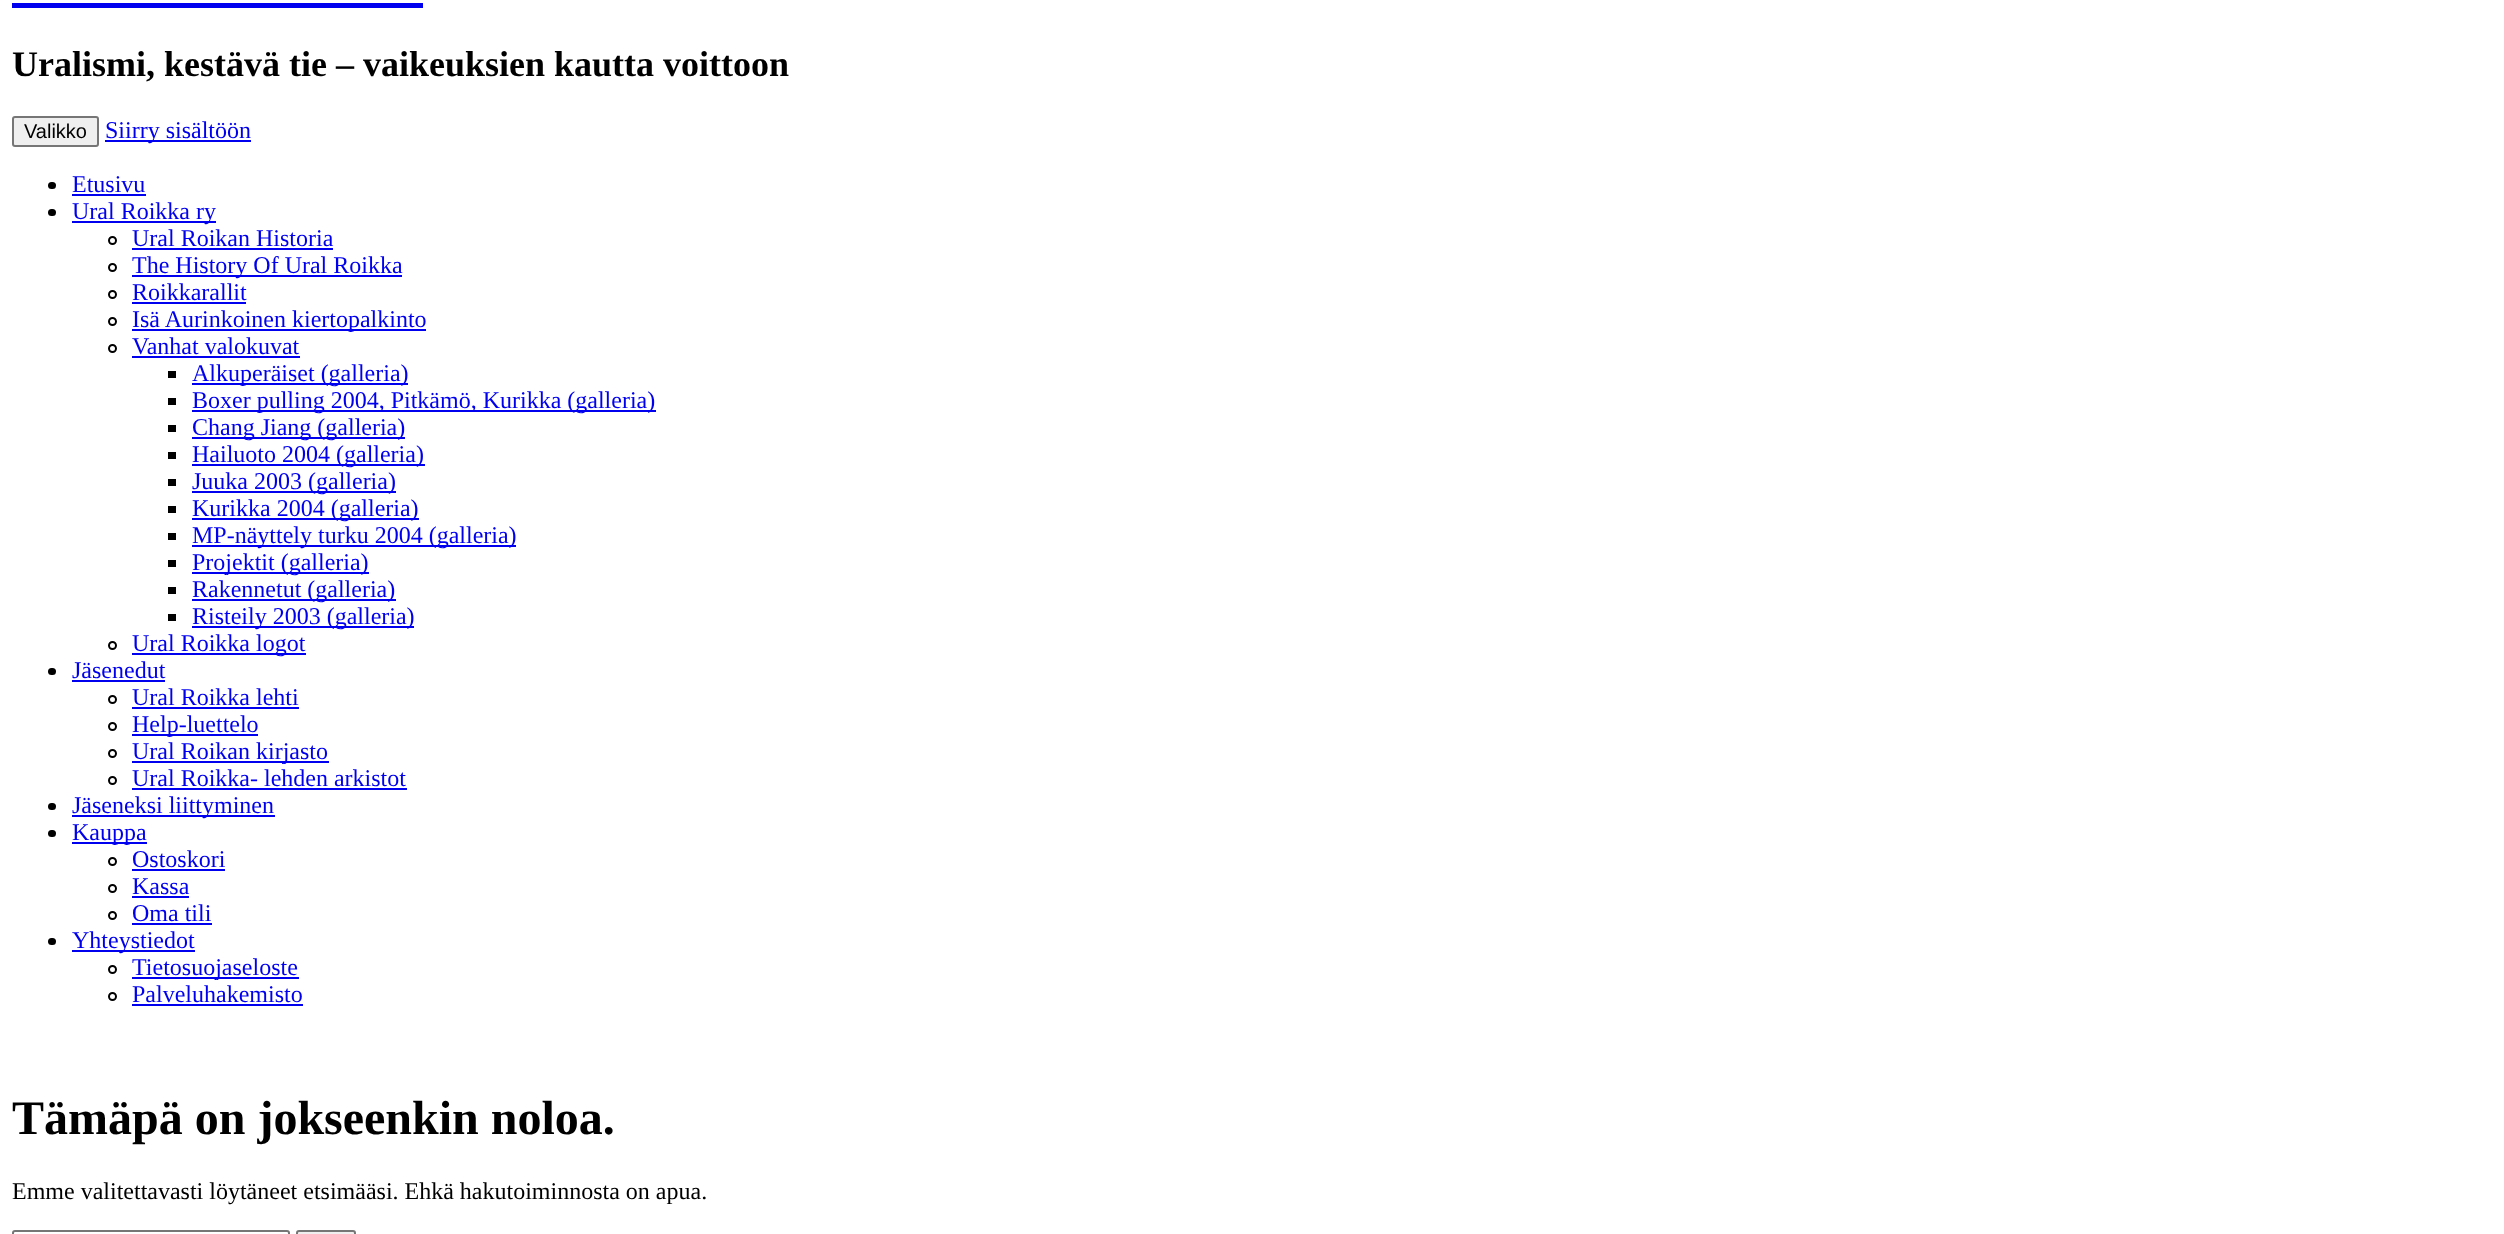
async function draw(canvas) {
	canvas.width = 2504;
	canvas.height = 1234;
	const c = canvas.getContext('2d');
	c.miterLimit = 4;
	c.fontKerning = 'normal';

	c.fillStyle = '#fff';
	c.fillRect(0, 0, 2504, 1234);
	c.fillStyle = '#00e';
	c.fillRect(12, 3, 411, 5);
	c.font = 'bold 36px Liberation Serif';
	c.fillStyle = '#000';
	c.fillText('Uralismi, kestävä tie – vaikeuksien kautta voittoon', 12, 76);
	c.fillStyle = '#efefef';
	c.beginPath();
	c.roundRect(13, 117, 85, 29, 2);
	c.fill();
	c.strokeStyle = '#767676';
	c.lineWidth = 2;
	c.stroke();
	c.font = '20px Liberation Sans';
	c.fillStyle = '#000';
	c.fillText('Valikko', 24, 138);
	c.fillStyle = '#00e';
	c.fillRect(105, 140, 146, 2);
	c.font = '24px Liberation Serif';
	c.fillText('Siirry sisältöön', 105, 138);
	c.fillStyle = '#000';
	c.beginPath();
	c.roundRect(48, 182, 8, 7, 3.5);
	c.fill();
	c.fillStyle = '#00e';
	c.fillText('Etusivu', 72, 192);
	c.fillRect(72, 194, 74, 2);
	c.fillStyle = '#000';
	c.beginPath();
	c.roundRect(48, 209, 8, 7, 3.5);
	c.fill();
	c.fillStyle = '#00e';
	c.fillRect(72, 221, 144, 2);
	c.fillText('Ural Roikka ry', 72, 219);
	c.beginPath();
	c.arc(112.5, 240.5, 3.5, 0, 2 * Math.PI);
	c.strokeStyle = '#000';
	c.stroke();
	c.fillText('Ural Roikan Historia', 132, 246);
	c.fillRect(132, 248, 201, 2);
	c.beginPath();
	c.arc(112.5, 267.5, 3.5, 0, 2 * Math.PI);
	c.stroke();
	c.fillRect(132, 275, 270, 2);
	c.fillText('The History Of Ural Roikka', 132, 273);
	c.beginPath();
	c.arc(112.5, 294.5, 3.5, 0, 2 * Math.PI);
	c.stroke();
	c.fillText('Roikkarallit', 132, 300);
	c.fillRect(132, 302, 114, 2);
	c.beginPath();
	c.arc(112.5, 321.5, 3.5, 0, 2 * Math.PI);
	c.stroke();
	c.fillRect(132, 329, 294, 2);
	c.fillText('Isä Aurinkoinen kiertopalkinto', 132, 327);
	c.beginPath();
	c.arc(112.5, 348.5, 3.5, 0, 2 * Math.PI);
	c.stroke();
	c.fillText('Vanhat valokuvat', 132, 354);
	for (const [x, y, w, h, color] of [
		[132, 356, 168, 2, '#00e'],
		[168, 371, 8, 7, '#000'],
		[192, 383, 216, 2, '#00e'],
	]) {
		c.fillStyle = color;
		c.fillRect(x, y, w, h);
	}
	c.fillText('Alkuperäiset (galleria)', 192, 381);
	c.fillStyle = '#000';
	c.fillRect(168, 398, 8, 7);
	c.fillStyle = '#00e';
	c.fillRect(192, 410, 464, 2);
	c.fillText('Boxer pulling 2004, Pitkämö, Kurikka (galleria)', 192, 408);
	c.fillStyle = '#000';
	c.fillRect(168, 425, 8, 7);
	c.fillStyle = '#00e';
	c.fillRect(192, 437, 213, 2);
	c.fillText('Chang Jiang (galleria)', 192, 435);
	c.fillStyle = '#000';
	c.fillRect(168, 452, 8, 7);
	c.fillStyle = '#00e';
	c.fillRect(192, 464, 233, 2);
	c.fillText('Hailuoto 2004 (galleria)', 192, 462);
	c.fillStyle = '#000';
	c.fillRect(168, 479, 8, 7);
	c.fillStyle = '#00e';
	c.fillRect(192, 491, 204, 2);
	c.fillText('Juuka 2003 (galleria)', 192, 489);
	c.fillStyle = '#000';
	c.fillRect(168, 506, 8, 7);
	c.fillStyle = '#00e';
	c.fillRect(192, 518, 227, 2);
	c.fillText('Kurikka 2004 (galleria)', 192, 516);
	c.fillStyle = '#000';
	c.fillRect(168, 533, 8, 7);
	c.fillStyle = '#00e';
	c.fillRect(192, 545, 324, 2);
	c.fillText('MP-näyttely turku 2004 (galleria)', 192, 543);
	c.fillStyle = '#000';
	c.fillRect(168, 560, 8, 7);
	c.fillStyle = '#00e';
	c.fillRect(192, 572, 177, 2);
	c.fillText('Projektit (galleria)', 192, 570);
	c.fillStyle = '#000';
	c.fillRect(168, 587, 8, 7);
	c.fillStyle = '#00e';
	c.fillRect(192, 599, 204, 2);
	c.fillText('Rakennetut (galleria)', 192, 597);
	c.fillStyle = '#000';
	c.fillRect(168, 614, 8, 7);
	c.fillStyle = '#00e';
	c.fillRect(192, 626, 222, 2);
	c.fillText('Risteily 2003 (galleria)', 192, 624);
	c.beginPath();
	c.arc(112.5, 645.5, 3.5, 0, 2 * Math.PI);
	c.stroke();
	c.fillRect(132, 653, 174, 2);
	c.fillText('Ural Roikka logot', 132, 651);
	c.fillStyle = '#000';
	c.beginPath();
	c.roundRect(48, 668, 8, 7, 3.5);
	c.fill();
	c.fillStyle = '#00e';
	c.fillText('Jäsenedut', 72, 678);
	c.fillRect(72, 680, 93, 2);
	c.beginPath();
	c.arc(112.5, 699.5, 3.5, 0, 2 * Math.PI);
	c.stroke();
	c.fillText('Ural Roikka lehti', 132, 705);
	c.fillRect(132, 707, 167, 2);
	c.beginPath();
	c.arc(112.5, 726.5, 3.5, 0, 2 * Math.PI);
	c.stroke();
	c.fillRect(132, 734, 126, 2);
	c.fillText('Help-luettelo', 132, 732);
	c.beginPath();
	c.arc(112.5, 753.5, 3.5, 0, 2 * Math.PI);
	c.stroke();
	c.fillRect(132, 761, 197, 2);
	c.fillText('Ural Roikan kirjasto', 132, 759);
	c.beginPath();
	c.arc(112.5, 780.5, 3.5, 0, 2 * Math.PI);
	c.stroke();
	c.fillText('Ural Roikka- lehden arkistot', 132, 786);
	c.fillRect(132, 788, 275, 2);
	c.fillStyle = '#000';
	c.beginPath();
	c.roundRect(48, 803, 8, 7, 3.5);
	c.fill();
	c.fillStyle = '#00e';
	c.fillRect(72, 815, 203, 2);
	c.fillText('Jäseneksi liittyminen', 72, 813);
	c.fillStyle = '#000';
	c.beginPath();
	c.roundRect(48, 830, 8, 7, 3.5);
	c.fill();
	c.fillStyle = '#00e';
	c.fillRect(72, 842, 75, 2);
	c.fillText('Kauppa', 72, 840);
	c.beginPath();
	c.arc(112.5, 861.5, 3.5, 0, 2 * Math.PI);
	c.stroke();
	c.fillText('Ostoskori', 132, 867);
	c.fillRect(132, 869, 93, 2);
	c.beginPath();
	c.arc(112.5, 888.5, 3.5, 0, 2 * Math.PI);
	c.stroke();
	c.fillText('Kassa', 132, 894);
	c.fillRect(132, 896, 57, 2);
	c.beginPath();
	c.arc(112.5, 915.5, 3.5, 0, 2 * Math.PI);
	c.stroke();
	c.fillText('Oma tili', 132, 921);
	c.fillRect(132, 923, 80, 2);
	c.fillStyle = '#000';
	c.beginPath();
	c.roundRect(48, 938, 8, 7, 3.5);
	c.fill();
	c.fillStyle = '#00e';
	c.fillRect(72, 950, 123, 2);
	c.fillText('Yhteystiedot', 72, 948);
	c.beginPath();
	c.arc(112.5, 969.5, 3.5, 0, 2 * Math.PI);
	c.stroke();
	c.fillRect(132, 977, 167, 2);
	c.fillText('Tietosuojaseloste', 132, 975);
	c.beginPath();
	c.arc(112.5, 996.5, 3.5, 0, 2 * Math.PI);
	c.stroke();
	c.fillText('Palveluhakemisto', 132, 1002);
	c.fillRect(132, 1004, 171, 2);
	c.font = 'bold 48px Liberation Serif';
	c.fillStyle = '#000';
	c.fillText('Tämäpä on jokseenkin noloa.', 12, 1134);
	c.font = '24px Liberation Serif';
	c.fillText('Emme valitettavasti löytäneet etsimääsi. Ehkä hakutoiminnosta on apua.', 12, 1199);
	c.beginPath();
	c.roundRect(13, 1231, 276, 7, 2);
	c.strokeStyle = '#767676';
	c.stroke();
	c.fillStyle = '#efefef';
	c.beginPath();
	c.roundRect(297, 1231, 58, 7, 2);
	c.fill();
	c.stroke();
}

draw(document.querySelector('canvas'));
